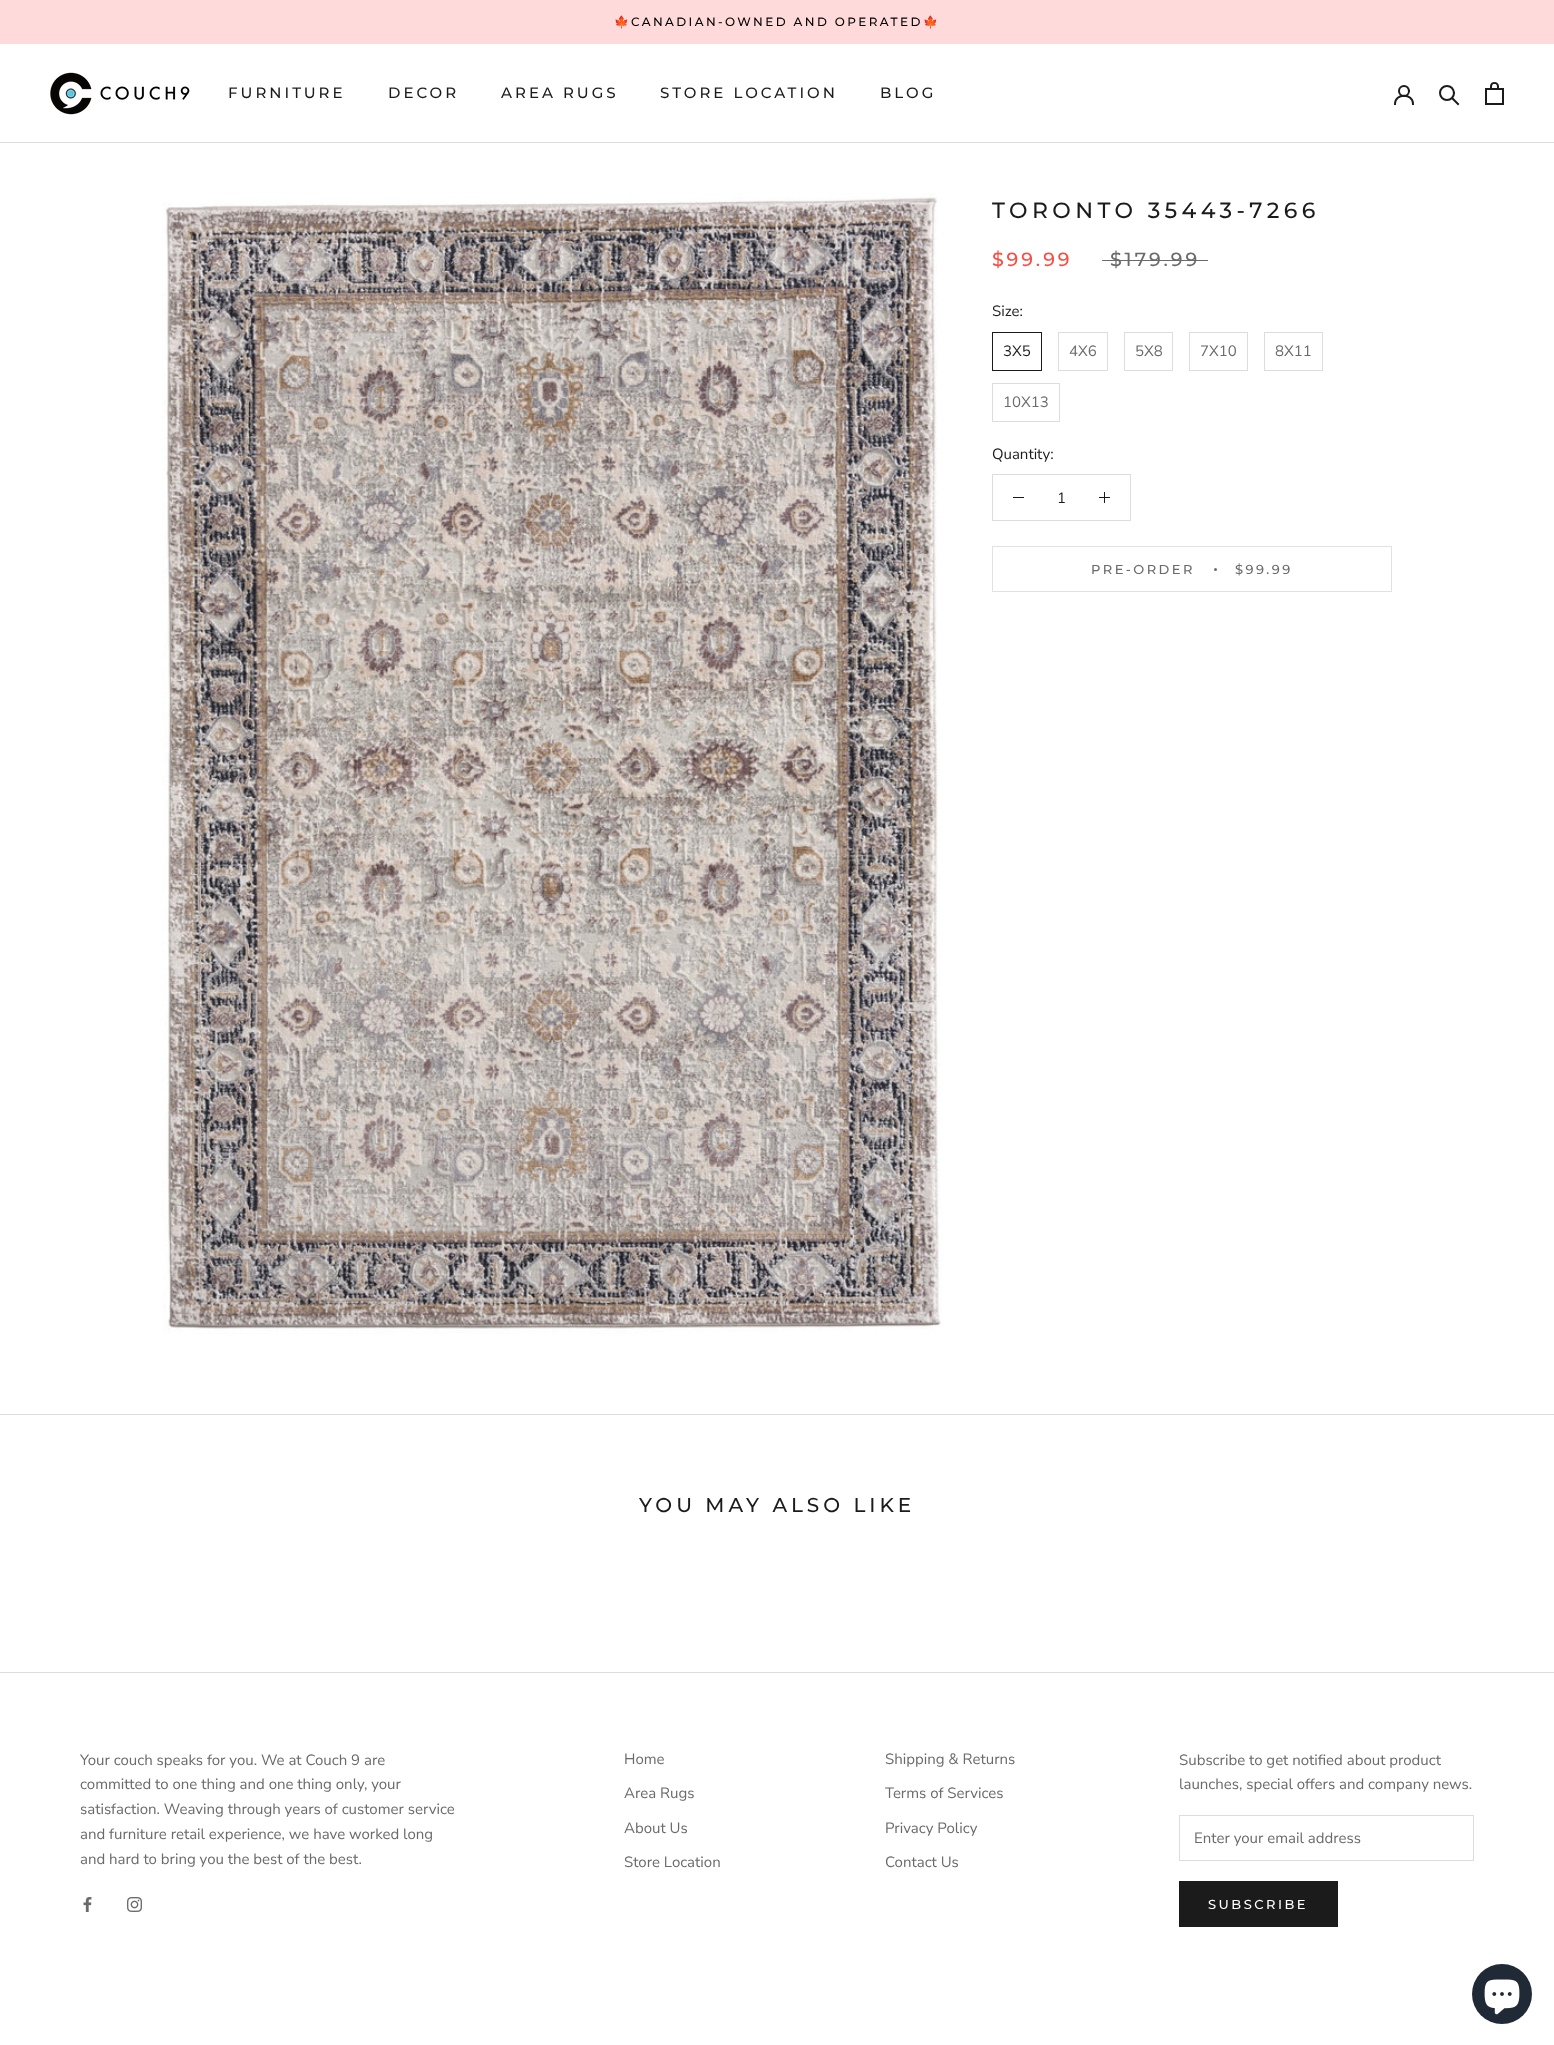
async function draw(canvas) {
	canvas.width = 1554;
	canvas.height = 2045;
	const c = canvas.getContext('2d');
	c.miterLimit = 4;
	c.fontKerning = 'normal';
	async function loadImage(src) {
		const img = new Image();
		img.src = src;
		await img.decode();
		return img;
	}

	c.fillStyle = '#fff';
	c.fillRect(0, 0, 1554, 2045);
	c.fillStyle = '#ffdada';
	c.fillRect(0, 0, 1554, 44);
	c.letterSpacing = '2.4px';
	c.font = '12px Noto Color Emoji';
	c.fillStyle = '#000';
	c.fillText('🍁', 614, 26);
	c.font = '500 12px Montserrat';
	c.fillText('CANADIAN-OWNED AND OPERATED', 631, 26);
	c.font = '12px Noto Color Emoji';
	c.fillText('🍁', 923, 26);
	c.fillStyle = '#ddd';
	c.fillRect(0, 142, 1554, 1);
	c.drawImage(await loadImage('img1.png'), 50, 72, 140, 43);
	c.letterSpacing = '3px';
	c.font = '500 15px Montserrat';
	c.fillStyle = '#1c1b1b';
	for (const [text, x, y] of [
		['FURNITURE', 228, 98],
		['DECOR', 388, 98],
		['AREA RUGS', 501, 98],
		['STORE LOCATION', 660, 98],
		['BLOG', 880, 98],
	]) {
		c.fillText(text, x, y);
	}
	c.beginPath();
	c.moveTo(1395, 104);
	c.bezierCurveTo(1395, 93, 1413, 93, 1413, 104);
	c.strokeStyle = '#1c1b1b';
	c.lineWidth = 2;
	c.lineCap = 'square';
	c.stroke();
	c.beginPath();
	c.arc(1404, 91, 5, 0, 2 * Math.PI);
	c.stroke();
	c.beginPath();
	c.moveTo(1458, 104);
	c.lineTo(1452.5, 98.5);
	c.stroke();
	c.beginPath();
	c.arc(1447, 93, 7, 0, 2 * Math.PI);
	c.stroke();
	c.drawImage(await loadImage('img2.png'), 1485, 82, 19, 23);
	c.drawImage(await loadImage('img3.png'), 162, 193, 780, 1141);
	c.letterSpacing = '4.4px';
	c.font = '500 22px Montserrat';
	c.fillText('TORONTO 35443-7266', 992, 218);
	c.letterSpacing = '3px';
	c.font = '500 19px Montserrat';
	c.fillStyle = '#f94c43';
	c.fillText('$99.99', 992, 266);
	c.fillStyle = '#6a6a6a';
	c.fillText('$179.99', 1110, 266);
	c.fillRect(1102, 260, 106, 1);
	c.letterSpacing = '0px';
	c.font = '15px Nunito Sans';
	c.fillStyle = '#1c1b1b';
	c.fillText('Size:', 992, 316);
	c.lineWidth = 1;
	c.strokeRect(992.5, 332.5, 49, 38);
	c.fillText('3X5', 1003, 356);
	c.strokeStyle = '#ddd';
	c.strokeRect(1058.5, 332.5, 49, 38);
	c.fillStyle = '#6a6a6a';
	c.fillText('4X6', 1069, 356);
	c.strokeRect(1124.5, 332.5, 48, 38);
	c.fillText('5X8', 1135, 356);
	c.strokeRect(1189.5, 332.5, 58, 38);
	c.fillText('7X10', 1200, 356);
	c.strokeRect(1264.5, 332.5, 58, 38);
	c.fillText('8X11', 1275, 356);
	c.strokeRect(992.5, 383.5, 67, 38);
	c.fillText('10X13', 1003, 407);
	c.fillStyle = '#1c1b1b';
	c.fillText('Quantity:', 992, 459);
	c.strokeRect(992.5, 474.5, 138, 46);
	c.fillRect(1013, 497, 11, 1);
	c.fillText('1', 1057, 503);
	c.fillRect(1104, 492, 1, 11);
	c.fillRect(1099, 497, 11, 1);
	c.strokeStyle = '#e1e1e1';
	c.strokeRect(992.5, 546.5, 399, 45);
	c.letterSpacing = '2.5px';
	c.font = '500 13px Montserrat';
	c.fillStyle = '#6a6a6a';
	c.fillText('PRE-ORDER', 1091, 574);
	c.beginPath();
	c.arc(1215.5, 569.5, 1.5, 0, 2 * Math.PI);
	c.fill();
	c.fillText('$99.99', 1235, 574);
	c.fillStyle = '#ddd';
	c.fillRect(0, 1414, 1554, 1);
	c.letterSpacing = '4px';
	c.font = '500 20px Montserrat';
	c.fillStyle = '#1c1b1b';
	c.fillText('YOU MAY ALSO LIKE', 639, 1512);
	c.fillStyle = '#ddd';
	c.fillRect(0, 1672, 1554, 1);
	c.letterSpacing = '0px';
	c.font = '15px Nunito Sans';
	c.fillStyle = '#6a6a6a';
	for (const [text, x, y] of [
		['Your couch speaks for you. We at Couch 9 are', 80, 1765],
		['committed to one thing and one thing only, your', 80, 1789],
		['satisfaction. Weaving through years of customer service', 80, 1814],
		['and furniture retail experience, we have worked long', 80, 1839],
		['and hard to bring you the best of the best.', 80, 1864],
	]) {
		c.fillText(text, x, y);
	}
	c.drawImage(await loadImage('img4.png'), 83, 1897, 9, 15);
	c.drawImage(await loadImage('img5.png'), 127, 1897, 15, 15);
	for (const [text, x, y] of [
		['Home', 624, 1764],
		['Area Rugs', 624, 1798],
		['About Us', 624, 1833],
		['Store Location', 624, 1867],
		['Shipping & Returns', 885, 1764],
		['Terms of Services', 885, 1798],
		['Privacy Policy', 885, 1833],
		['Contact Us', 885, 1867],
		['Subscribe to get notified about product', 1179, 1765],
		['launches, special offers and company news.', 1179, 1789],
	]) {
		c.fillText(text, x, y);
	}
	c.strokeStyle = '#ddd';
	c.strokeRect(1179.5, 1815.5, 294, 45);
	c.fillText('Enter your email address', 1194, 1843);
	c.strokeStyle = '#1c1b1b';
	c.strokeRect(1179.5, 1881.5, 158, 45);
	c.fillStyle = '#1c1b1b';
	c.fillRect(1180, 1882, 157, 44);
	c.letterSpacing = '2.5px';
	c.font = '500 13px Montserrat';
	c.fillStyle = '#fff';
	c.fillText('SUBSCRIBE', 1208, 1909);
	c.fillStyle = '#202a36';
	c.beginPath();
	c.arc(1502, 1994, 30, 0, 2 * Math.PI);
	c.fill();
	c.drawImage(await loadImage('img6.png'), 1484, 1979, 36, 36);
}

draw(document.querySelector('canvas'));
